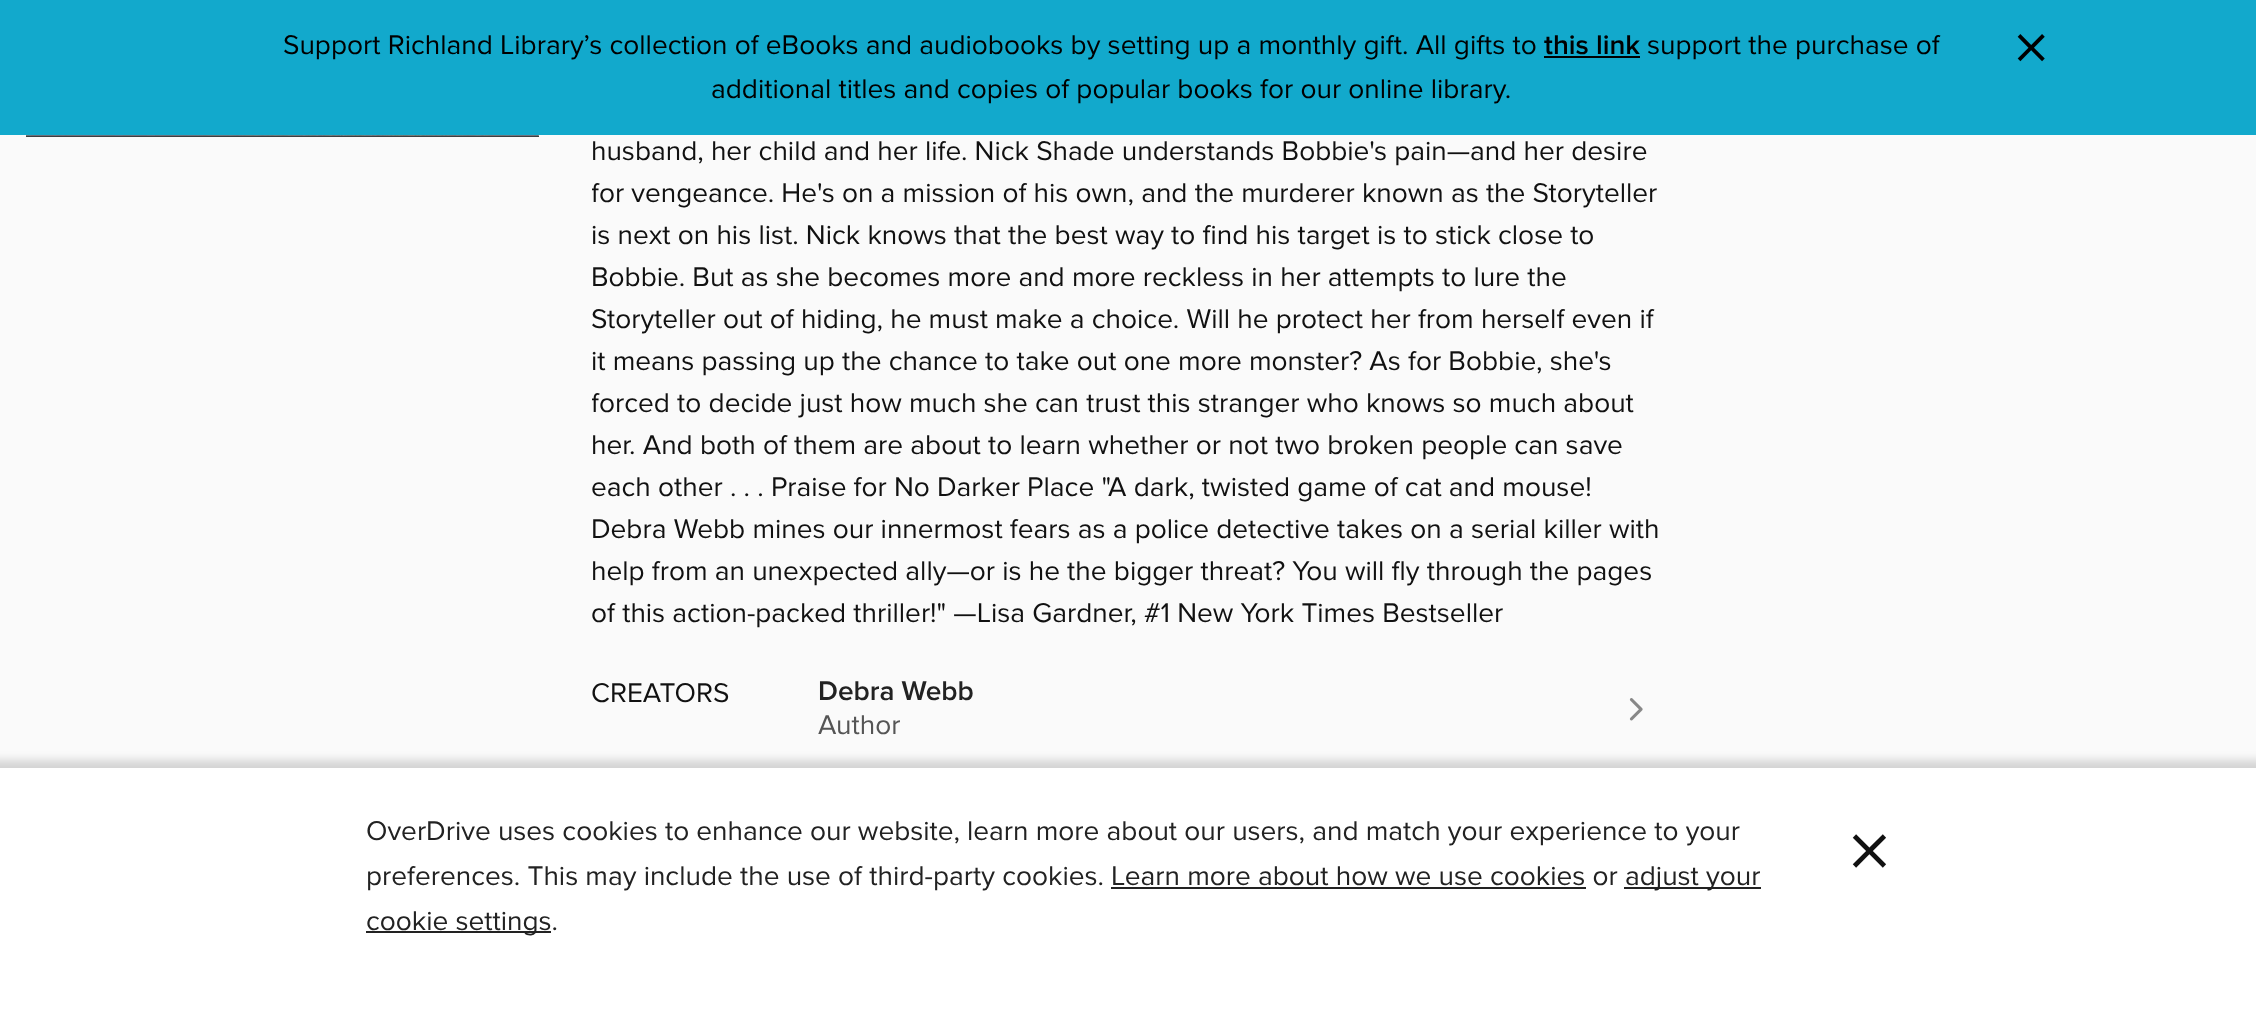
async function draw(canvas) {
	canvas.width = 2256;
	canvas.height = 1021;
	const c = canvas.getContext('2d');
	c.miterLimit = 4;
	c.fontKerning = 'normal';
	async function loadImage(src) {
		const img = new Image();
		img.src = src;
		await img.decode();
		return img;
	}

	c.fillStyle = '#fafafa';
	c.fillRect(0, 0, 2256, 1021);
	c.fillStyle = '#12a9cc';
	c.fillRect(0, 0, 2256, 135);
	c.font = '28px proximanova';
	c.fillStyle = '#000';
	c.fillText('Support Richland Library’s collection of eBooks and audiobooks by setting up a monthly gift. All gifts to', 283, 54);
	c.font = '600 28px Proxima Nova';
	c.fillText('this link', 1544, 54);
	c.fillRect(1544, 56, 96, 2);
	c.font = '28px proximanova';
	c.fillText('support the purchase of', 1647, 54);
	c.fillText('additional titles and copies of popular books for our online library.', 711, 98);
	c.font = '73px proximanova';
	c.fillText('×', 2013, 72);
	c.fillStyle = '#3b3f42';
	c.fillRect(26, 135, 513, 2);
	c.drawImage(await loadImage('img1.png'), 26, 135, 513, 1);
	c.font = '28px proximanova';
	c.fillStyle = '#111';
	c.fillText('husband, her child and her life. Nick Shade understands Bobbie\'s pain—and her desire', 591, 160);
	c.save();
	c.beginPath();
	c.rect(592, 0, 1076, 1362);
	c.clip();
	c.fillText('for vengeance. He\'s on a mission of his own, and the murderer known as the Storyteller', 591, 202);
	c.restore();
	for (const [text, x, y] of [
		['is next on his list. Nick knows that the best way to find his target is to stick close to', 591, 244],
		['Bobbie. But as she becomes more and more reckless in her attempts to lure the', 591, 286],
		['Storyteller out of hiding, he must make a choice. Will he protect her from herself even if', 591, 328],
		['it means passing up the chance to take out one more monster? As for Bobbie, she\'s', 591, 370],
	]) {
		c.fillText(text, x, y);
	}
	c.save();
	c.beginPath();
	c.rect(592, 0, 1076, 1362);
	c.clip();
	c.fillText('forced to decide just how much she can trust this stranger who knows so much about', 591, 412);
	c.restore();
	for (const [text, x, y] of [
		['her. And both of them are about to learn whether or not two broken people can save', 591, 454],
		['each other . . . Praise for No Darker Place "A dark, twisted game of cat and mouse!', 591, 496],
		['Debra Webb mines our innermost fears as a police detective takes on a serial killer with', 591, 538],
		['help from an unexpected ally—or is he the bigger threat? You will fly through the pages', 591, 580],
		['of this action-packed thriller!" —Lisa Gardner, #1 New York Times Bestseller', 591, 622],
		['CREATORS', 591, 702],
	]) {
		c.fillText(text, x, y);
	}
	c.font = '600 28px Proxima Nova';
	c.fillStyle = '#222';
	c.fillText('Debra Webb', 818, 700);
	c.font = '28px proximanova';
	c.fillStyle = '#555';
	c.fillText('Author', 818, 734);
	c.drawImage(await loadImage('img2.png'), 1629, 698, 14, 23);
	c.fillStyle = '#00000026';
	c.filter = 'blur(4.5px)';
	c.beginPath();
	c.rect(-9, 760, 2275, 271);
	c.fill();
	c.filter = 'none';
	c.fillStyle = '#fff';
	c.fillRect(0, 768, 2256, 253);
	c.fillStyle = '#222';
	c.fillText('OverDrive uses cookies to enhance our website, learn more about our users, and match your experience to your', 366, 840);
	c.fillText('preferences. This may include the use of third-party cookies. Learn more about how we use cookies or', 366, 885);
	c.fillRect(1111, 887, 475, 2);
	c.fillRect(1624, 887, 137, 2);
	c.fillText('adjust your', 1625, 885);
	c.fillRect(366, 931, 185, 2);
	c.fillText('cookie settings.', 366, 930);
	c.font = '90px proximanova';
	c.fillStyle = '#111';
	c.fillText('×', 1847, 881);
}

draw(document.querySelector('canvas'));
